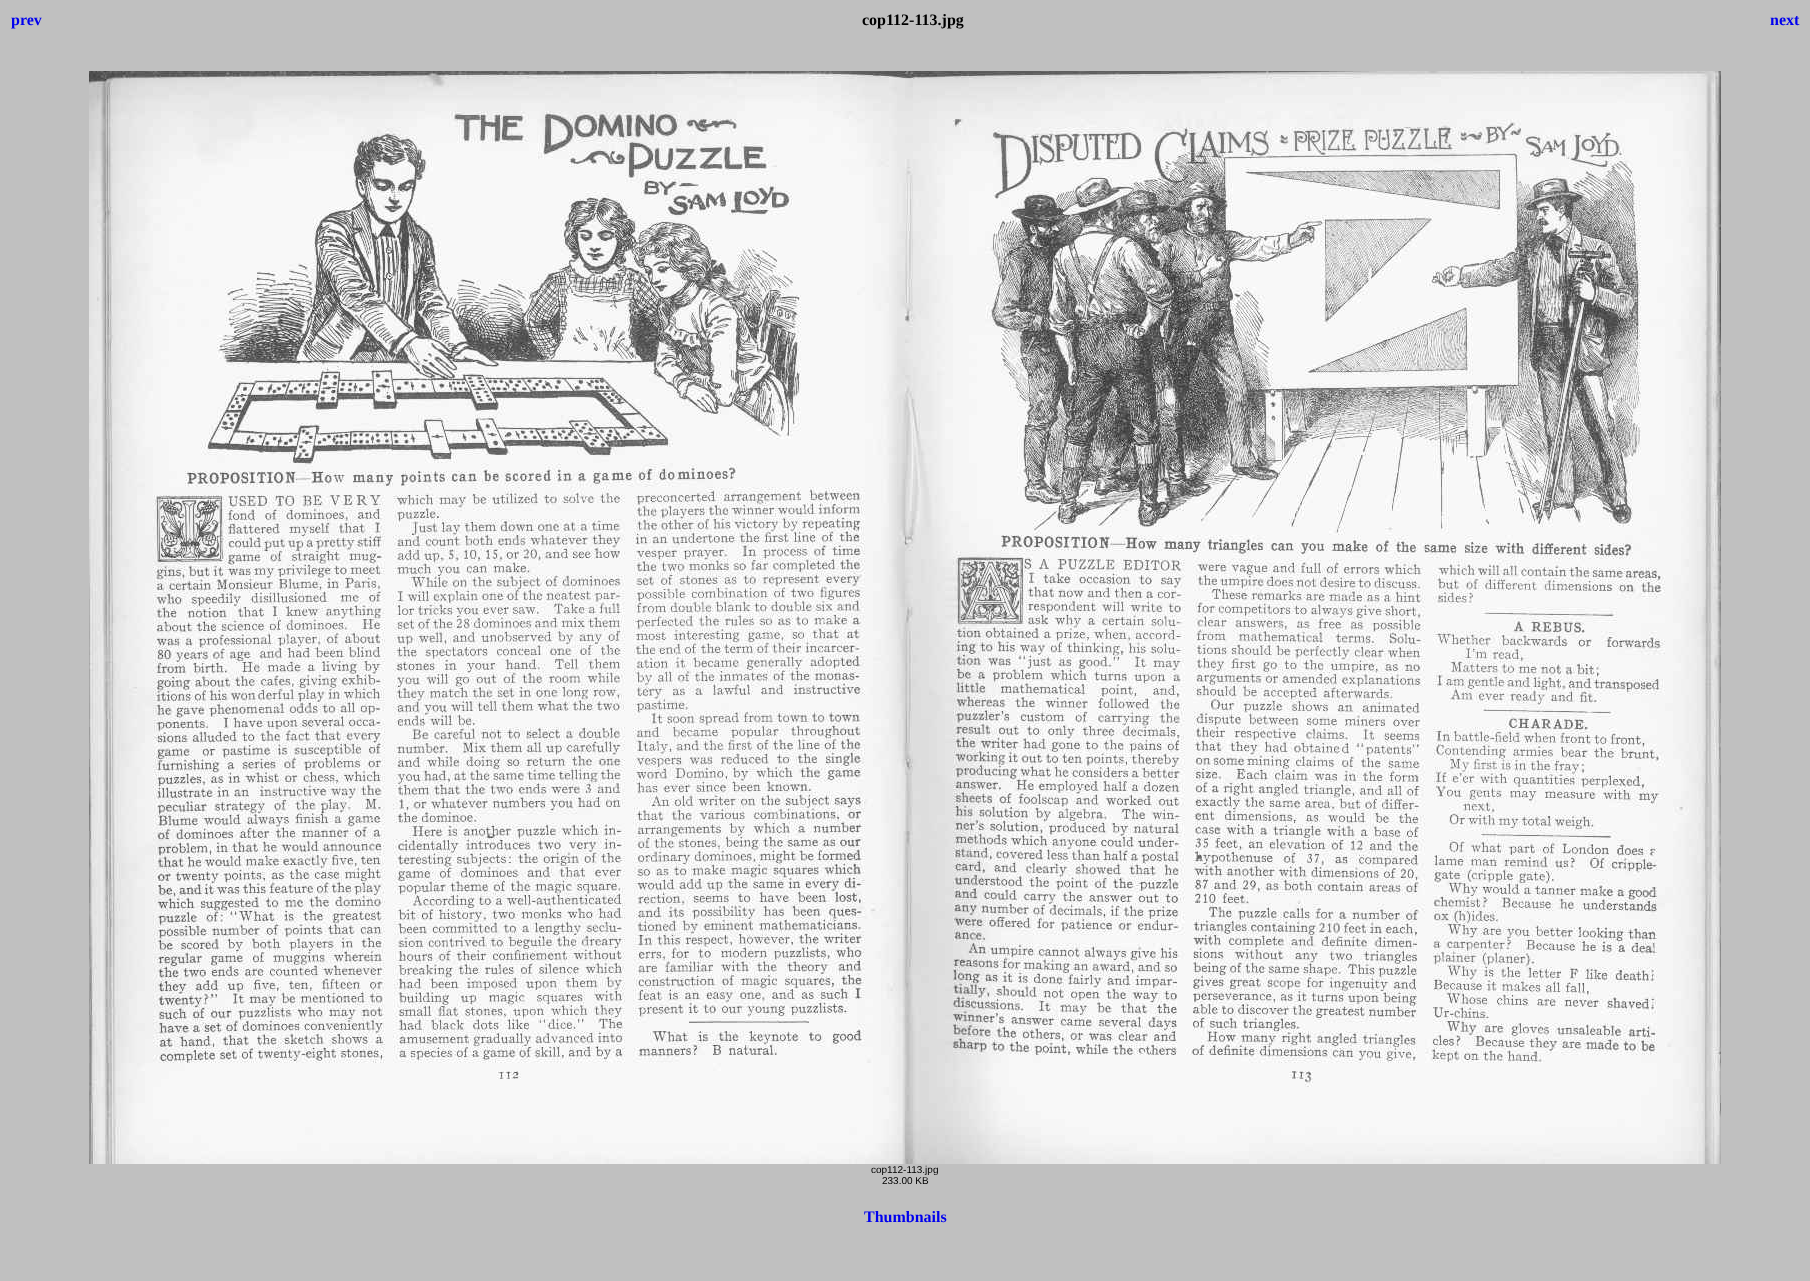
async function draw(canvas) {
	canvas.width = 1810;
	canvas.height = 1281;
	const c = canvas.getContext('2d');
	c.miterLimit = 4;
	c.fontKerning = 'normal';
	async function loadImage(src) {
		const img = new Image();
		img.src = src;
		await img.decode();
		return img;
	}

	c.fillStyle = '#c0c0c0';
	c.fillRect(0, 0, 1810, 1281);
	c.font = 'bold 16px Liberation Serif';
	c.fillStyle = '#00e';
	c.fillText('prev', 11, 25);
	c.fillStyle = '#000';
	c.fillText('cop112-113.jpg', 862, 25);
	c.fillStyle = '#00e';
	c.fillText('next', 1770, 25);
	c.drawImage(await loadImage('img1.png'), 89, 71, 1632, 1093);
	c.font = '10px Liberation Sans';
	c.fillStyle = '#000';
	c.fillText('cop112-113.jpg', 871, 1173);
	c.fillText('233.00 KB', 882, 1184);
	c.font = 'bold 16px Liberation Serif';
	c.fillStyle = '#00e';
	c.fillText('Thumbnails', 864, 1222);
}

draw(document.querySelector('canvas'));
